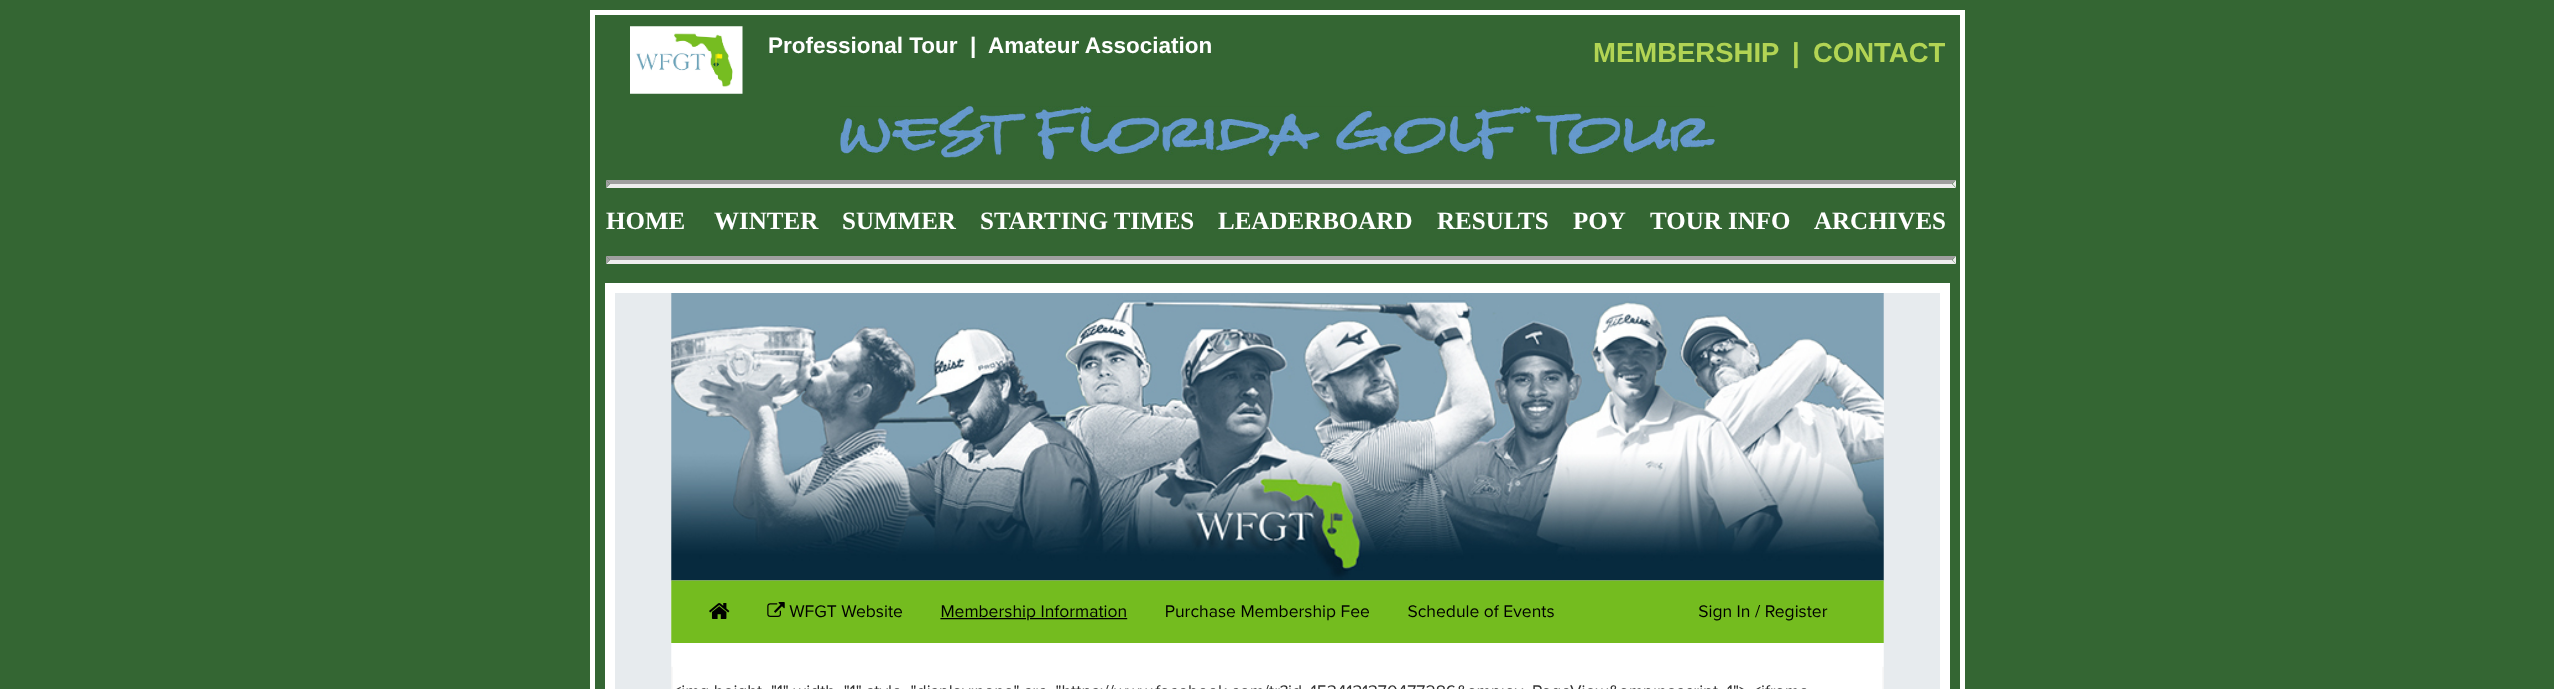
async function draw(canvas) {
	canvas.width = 2554;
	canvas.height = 689;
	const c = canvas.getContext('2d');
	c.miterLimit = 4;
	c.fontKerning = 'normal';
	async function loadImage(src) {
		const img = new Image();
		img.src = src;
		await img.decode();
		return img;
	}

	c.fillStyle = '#346633';
	c.fillRect(0, 0, 2554, 689);
	c.strokeStyle = '#fff';
	c.lineWidth = 5;
	c.strokeRect(592.5, 12.5, 1370, 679);
	c.drawImage(await loadImage('img1.png'), 630, 26, 113, 68);
	c.font = 'bold 22.5px Liberation Sans';
	c.fillStyle = '#fff';
	for (const [text, x, y] of [
		['Professional Tour', 768, 53],
		['|', 970, 53],
		['Amateur Association', 988, 53],
	]) {
		c.fillText(text, x, y);
	}
	c.font = 'bold 27.5px Liberation Sans';
	c.fillStyle = '#b2d454';
	for (const [text, x, y] of [
		['MEMBERSHIP', 1593, 62],
		['|', 1792, 62],
		['CONTACT', 1813, 62],
	]) {
		c.fillText(text, x, y);
	}
	c.drawImage(await loadImage('img2.png'), 840, 106, 875, 54);
	c.fillStyle = '#9f9f9f';
	c.beginPath();
	c.moveTo(606, 180);
	c.lineTo(1956, 180);
	c.lineTo(1952, 184);
	c.lineTo(610, 184);
	c.closePath();
	c.fill();
	c.fillStyle = '#eee';
	c.beginPath();
	c.moveTo(1956, 180);
	c.lineTo(1956, 187.5);
	c.lineTo(1952.5, 184);
	c.closePath();
	c.fill();
	c.beginPath();
	c.moveTo(1956, 188);
	c.lineTo(606, 188);
	c.lineTo(610, 184);
	c.lineTo(1952, 184);
	c.closePath();
	c.fill();
	c.fillStyle = '#9f9f9f';
	c.beginPath();
	c.moveTo(606, 187.5);
	c.lineTo(606, 180);
	c.lineTo(610, 184);
	c.closePath();
	c.fill();
	c.font = 'bold 25px Liberation Serif';
	c.fillStyle = '#fff';
	for (const [text, x, y] of [
		['HOME', 606, 229],
		['WINTER', 714, 229],
		['SUMMER', 842, 229],
		['STARTING TIMES', 980, 229],
		['LEADERBOARD', 1218, 229],
		['RESULTS', 1437, 229],
		['POY', 1573, 229],
		['TOUR INFO', 1650, 229],
		['ARCHIVES', 1814, 229],
	]) {
		c.fillText(text, x, y);
	}
	c.fillStyle = '#9f9f9f';
	c.beginPath();
	c.moveTo(606, 256);
	c.lineTo(1956, 256);
	c.lineTo(1952, 260);
	c.lineTo(610, 260);
	c.closePath();
	c.fill();
	c.fillStyle = '#eee';
	c.beginPath();
	c.moveTo(1956, 256);
	c.lineTo(1956, 264);
	c.lineTo(1952.5, 260);
	c.closePath();
	c.fill();
	c.beginPath();
	c.moveTo(1956, 264);
	c.lineTo(606, 264);
	c.lineTo(610, 260);
	c.lineTo(1952, 260);
	c.closePath();
	c.fill();
	c.fillStyle = '#9f9f9f';
	c.beginPath();
	c.moveTo(606, 264);
	c.lineTo(606, 256);
	c.lineTo(610, 260);
	c.closePath();
	c.fill();
	c.fillStyle = '#fff';
	c.fillRect(605, 283, 1345, 406);
	c.drawImage(await loadImage('img3.png'), 615, 293, 1325, 396);
}

draw(document.querySelector('canvas'));
